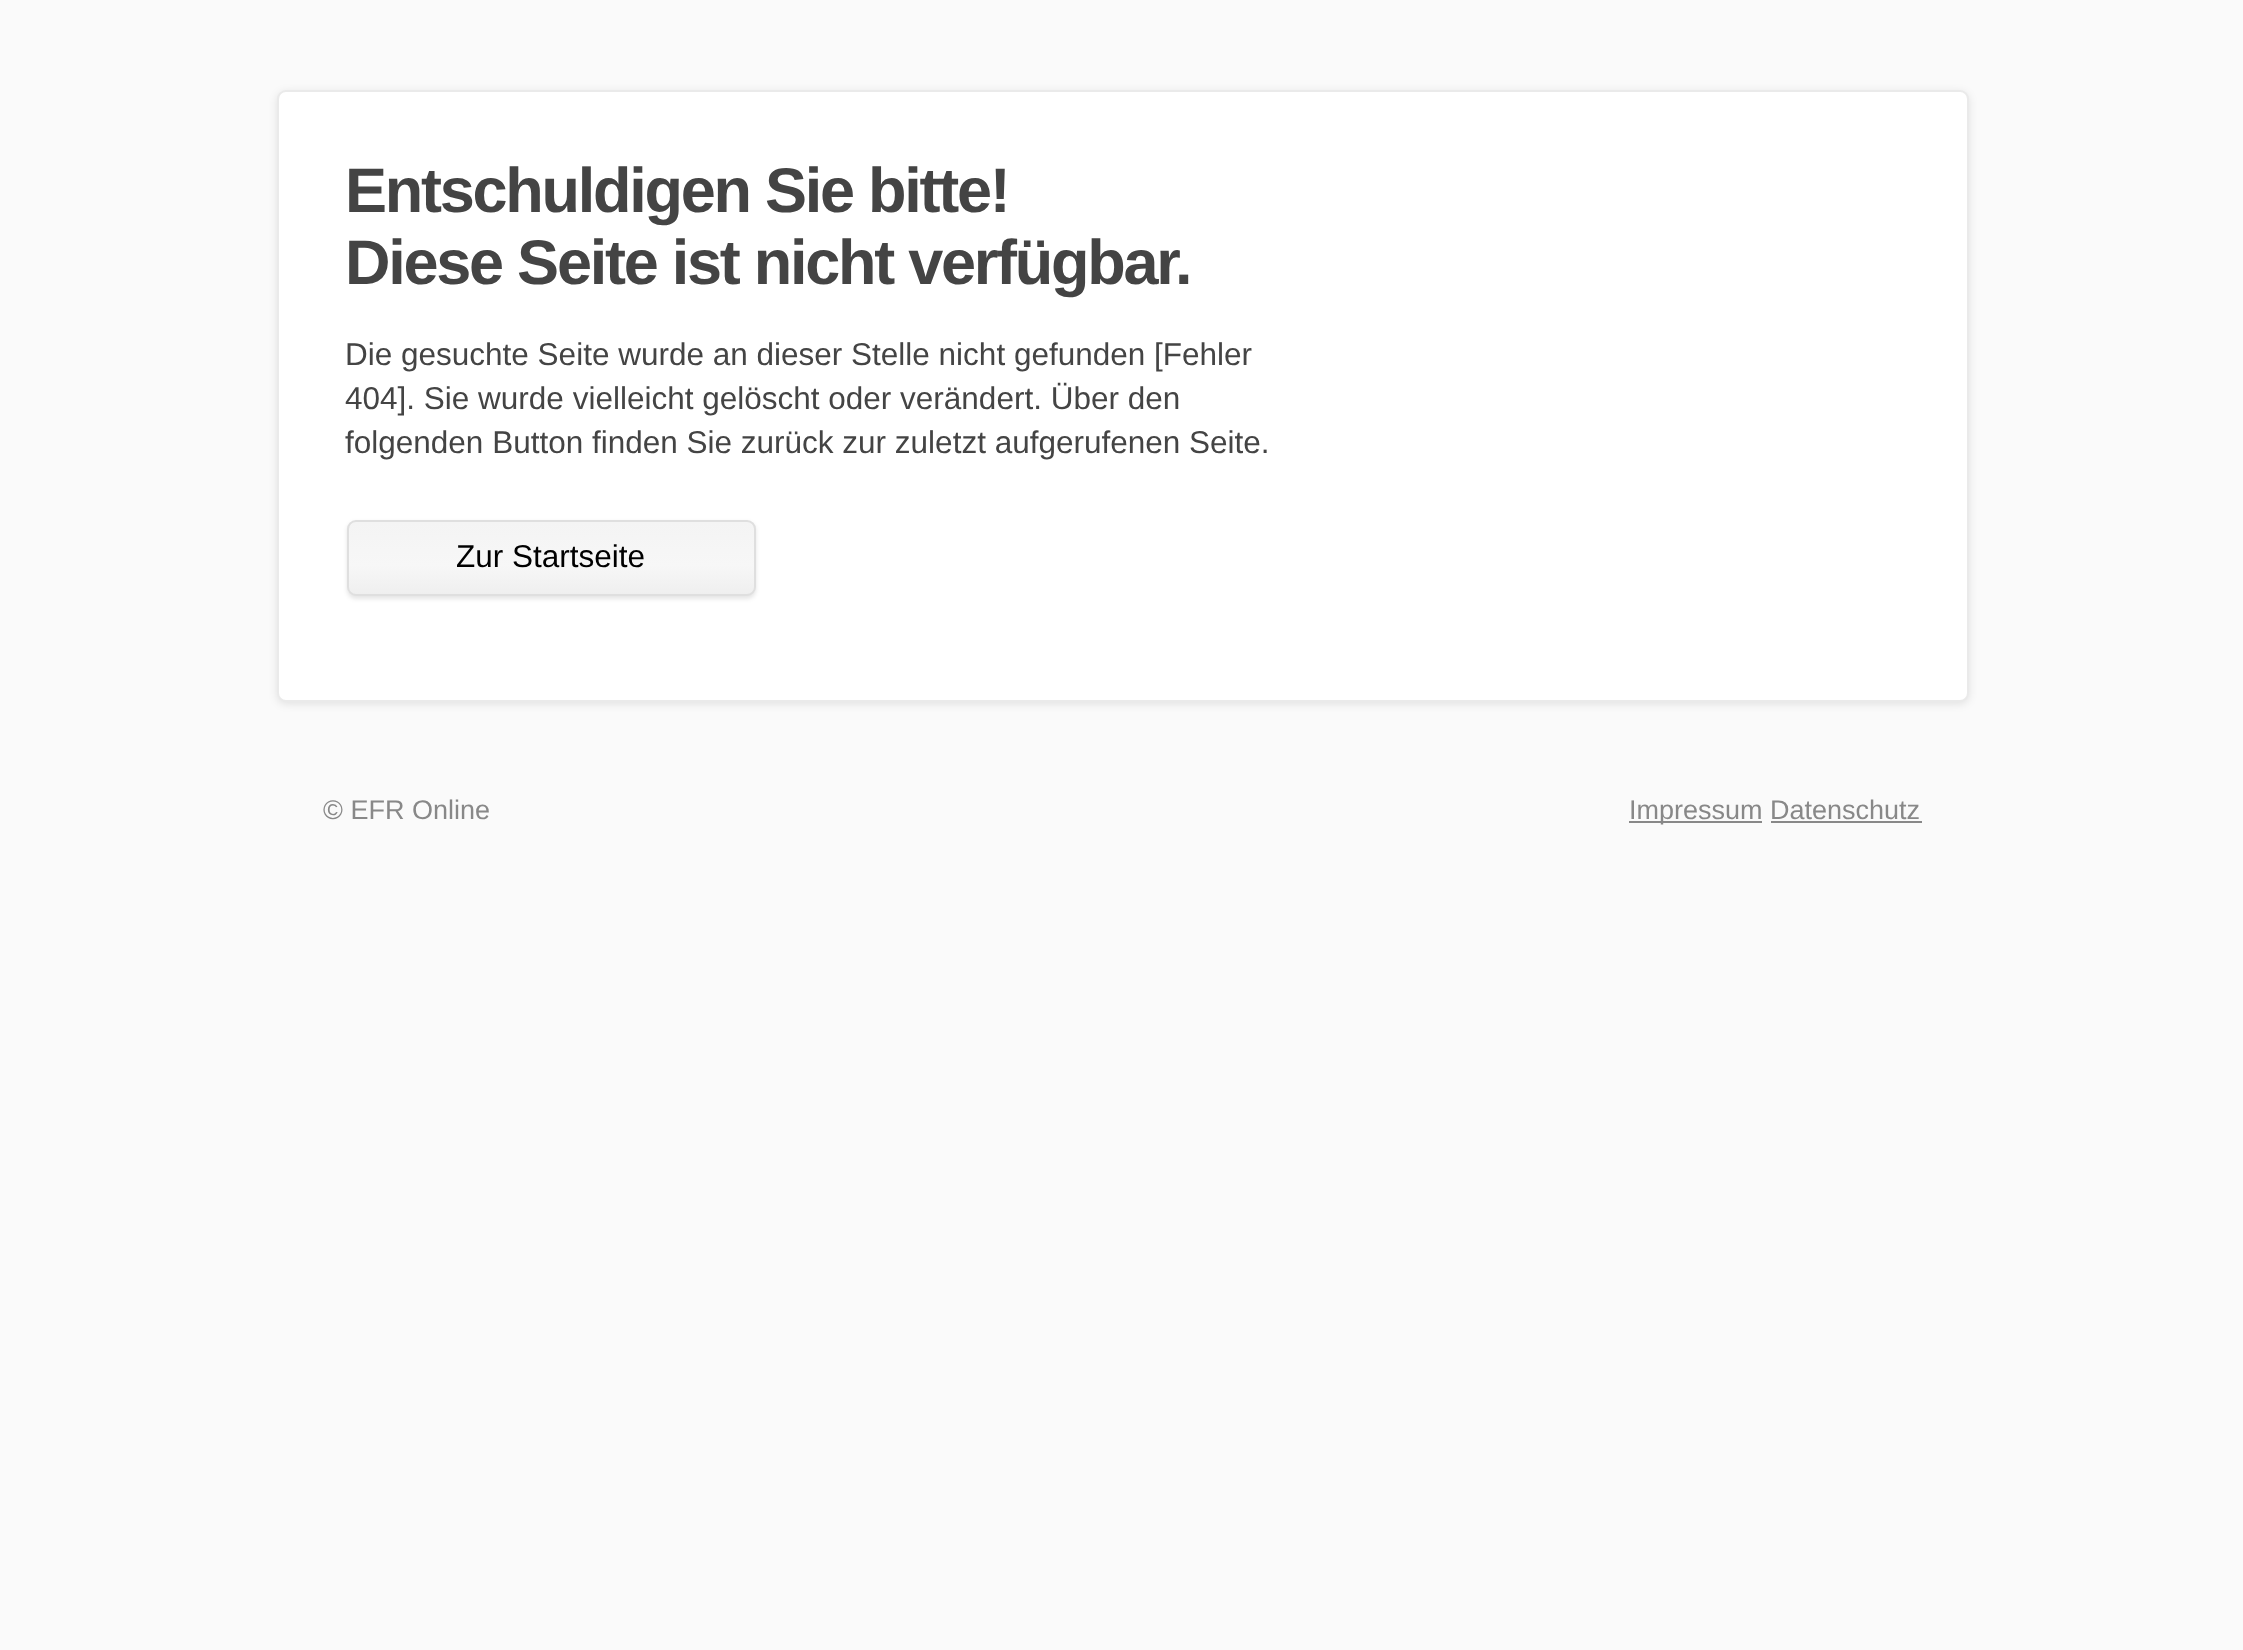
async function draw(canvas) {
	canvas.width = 2243;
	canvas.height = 1650;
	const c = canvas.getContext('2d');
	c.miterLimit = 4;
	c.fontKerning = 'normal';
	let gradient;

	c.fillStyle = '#fafafa';
	c.fillRect(0, 0, 2243, 1650);
	c.fillStyle = '#0000001a';
	c.filter = 'blur(4.5px)';
	c.beginPath();
	c.roundRect(277, 92, 1692, 612, 9);
	c.fill();
	c.filter = 'none';
	c.fillStyle = '#fff';
	c.beginPath();
	c.roundRect(278, 91, 1690, 610, 8);
	c.fill();
	c.strokeStyle = '#eaeaea';
	c.lineWidth = 2;
	c.stroke();
	c.letterSpacing = '-2.25px';
	c.font = 'bold 63px Liberation Sans';
	c.fillStyle = '#444';
	c.fillText('Entschuldigen Sie bitte!', 345, 212);
	c.fillText('Diese Seite ist nicht verfügbar.', 345, 284);
	c.letterSpacing = '0px';
	c.font = '31.5px Liberation Sans';
	for (const [text, x, y] of [
		['Die gesuchte Seite wurde an dieser Stelle nicht gefunden [Fehler', 345, 365],
		['404]. Sie wurde vielleicht gelöscht oder verändert. Über den', 345, 409],
		['folgenden Button finden Sie zurück zur zuletzt aufgerufenen Seite.', 345, 453],
	]) {
		c.fillText(text, x, y);
	}
	c.fillStyle = '#0000001a';
	c.filter = 'blur(2px)';
	c.beginPath();
	c.roundRect(347, 522, 409, 77, 9);
	c.fill();
	c.filter = 'none';
	c.save();
	c.beginPath();
	c.roundRect(347, 520, 409, 76, 9);
	c.clip();
	gradient = c.createLinearGradient(551, 522, 551, 594);
	gradient.addColorStop(0.01, '#f4f4f4');
	gradient.addColorStop(0.6, '#f7f7f7');
	gradient.addColorStop(1, '#efefef');
	c.fillStyle = gradient;
	c.fillRect(347, 522, 409, 72);
	c.restore();
	c.beginPath();
	c.roundRect(348, 521, 407, 74, 8);
	c.strokeStyle = '#dfdfdf';
	c.stroke();
	c.fillStyle = '#000';
	c.fillText('Zur Startseite', 456, 567);
	c.font = '27px Liberation Sans';
	c.fillStyle = '#888';
	c.fillText('© EFR Online', 323, 819);
	c.fillRect(1629, 821, 133, 2);
	c.fillText('Impressum Datenschutz', 1629, 819);
	c.fillRect(1771, 821, 151, 2);
}

draw(document.querySelector('canvas'));
